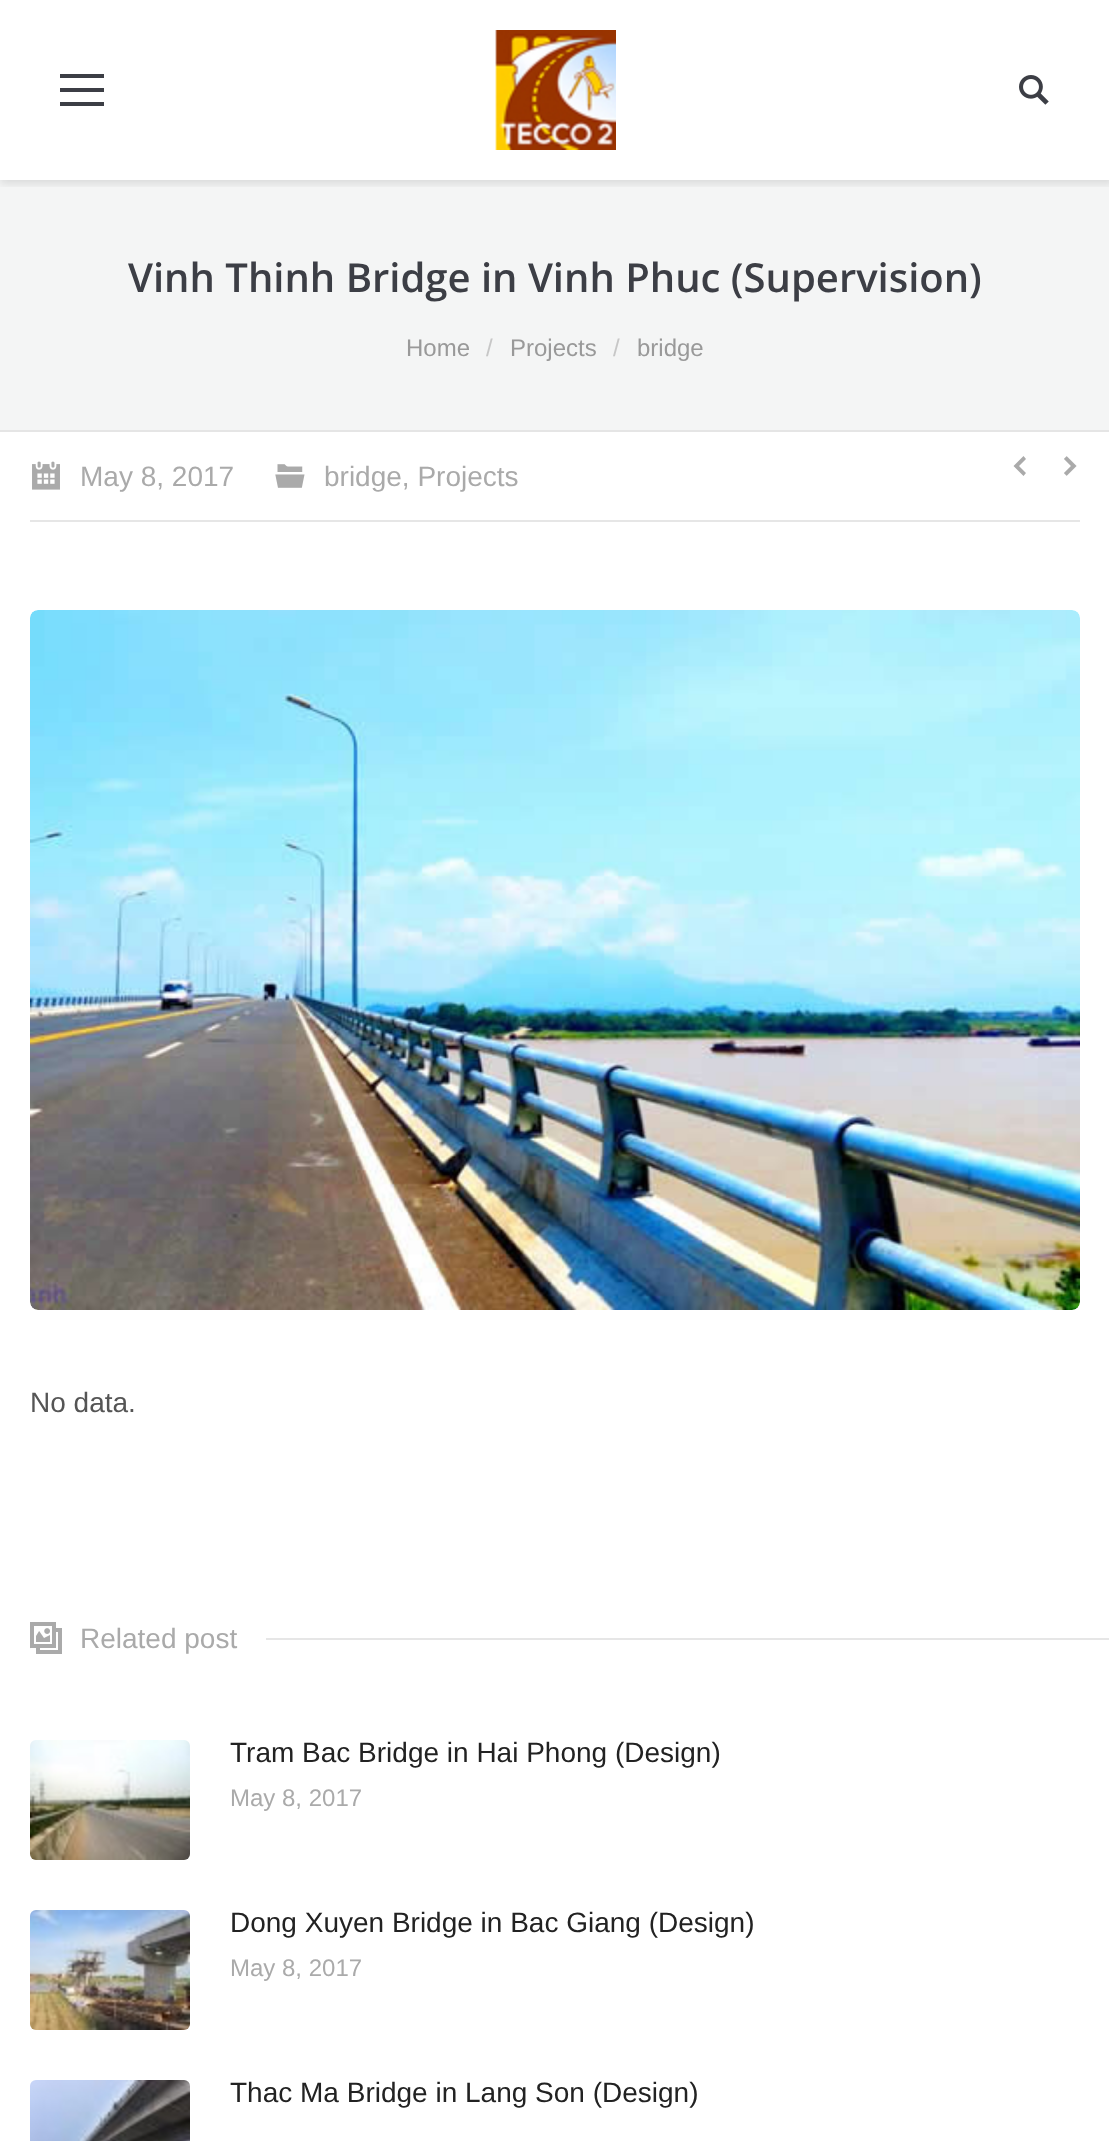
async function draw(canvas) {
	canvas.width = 1109;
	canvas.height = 2141;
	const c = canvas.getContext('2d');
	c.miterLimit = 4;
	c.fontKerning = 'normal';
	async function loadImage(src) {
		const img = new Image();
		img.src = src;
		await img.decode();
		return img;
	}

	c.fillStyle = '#fff';
	c.fillRect(0, 0, 1109, 2141);
	c.fillStyle = '#f4f5f5';
	c.fillRect(0, 180, 1109, 250);
	c.save();
	c.beginPath();
	c.rect(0, 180, 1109, 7);
	c.clip();
	c.fillStyle = '#0000001a';
	c.filter = 'blur(4px)';
	c.beginPath();
	c.rect(0, 0, 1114, 184);
	c.fill();
	c.filter = 'none';
	c.restore();
	for (const [x, y, w, h, color] of [
		[60, 88, 44, 4, '#3c3e45'],
		[60, 74, 44, 4, '#3c3e45'],
		[60, 102, 44, 4, '#3c3e45'],
	]) {
		c.fillStyle = color;
		c.fillRect(x, y, w, h);
	}
	c.drawImage(await loadImage('img1.png'), 495, 30, 121, 120);
	c.drawImage(await loadImage('img2.png'), 1019, 75, 30, 30);
	c.fillStyle = '#e5e5e5';
	c.fillRect(0, 430, 1109, 2);
	c.font = '600 40px Open Sans';
	c.fillStyle = '#3c3e45';
	c.fillText('Vinh Thinh Bridge in Vinh Phuc (Supervision)', 128, 292);
	c.font = '24px Liberation Sans';
	c.fillStyle = '#999';
	c.fillText('Home', 406, 356);
	c.fillStyle = '#c7c7c7';
	c.fillText('/', 486, 356);
	c.fillStyle = '#999';
	c.fillText('Projects', 510, 356);
	c.fillStyle = '#c7c7c7';
	c.fillText('/', 613, 356);
	c.fillStyle = '#999';
	c.fillText('bridge', 637, 356);
	c.fillStyle = '#e6e6e6';
	c.fillRect(30, 520, 1050, 2);
	c.drawImage(await loadImage('img3.png'), 32, 461, 28, 29);
	c.font = '28px Liberation Sans';
	c.fillStyle = '#aaa';
	c.fillText('May 8, 2017', 80, 486);
	c.drawImage(await loadImage('img4.png'), 275, 464, 30, 24);
	c.fillText('bridge, Projects', 324, 486);
	c.beginPath();
	c.moveTo(1026, 473);
	c.lineTo(1019, 466);
	c.lineTo(1026, 459);
	c.lineTo(1023.5, 456);
	c.lineTo(1013.5, 466);
	c.lineTo(1023.5, 476);
	c.closePath();
	c.fill();
	c.drawImage(await loadImage('img5.png'), 1064, 456, 13, 20);
	c.drawImage(await loadImage('img6.png'), 30, 610, 1050, 700);
	c.fillStyle = '#555';
	c.fillText('No data.', 30, 1412);
	c.drawImage(await loadImage('img7.png'), 30, 1622, 32, 32);
	c.fillStyle = '#aaa';
	c.fillText('Related post', 80, 1648);
	c.fillStyle = '#e6e6e6';
	c.fillRect(266, 1638, 843, 2);
	c.drawImage(await loadImage('img8.png'), 30, 1740, 160, 120);
	c.fillStyle = '#222';
	c.fillText('Tram Bac Bridge in Hai Phong (Design)', 230, 1762);
	c.font = '24px Liberation Sans';
	c.fillStyle = '#aaa';
	c.fillText('May 8, 2017', 230, 1806);
	c.drawImage(await loadImage('img9.png'), 30, 1910, 160, 120);
	c.font = '28px Liberation Sans';
	c.fillStyle = '#222';
	c.fillText('Dong Xuyen Bridge in Bac Giang (Design)', 230, 1932);
	c.font = '24px Liberation Sans';
	c.fillStyle = '#aaa';
	c.fillText('May 8, 2017', 230, 1976);
	c.drawImage(await loadImage('img10.png'), 30, 2080, 160, 61);
	c.font = '28px Liberation Sans';
	c.fillStyle = '#222';
	c.fillText('Thac Ma Bridge in Lang Son (Design)', 230, 2102);
}

draw(document.querySelector('canvas'));
